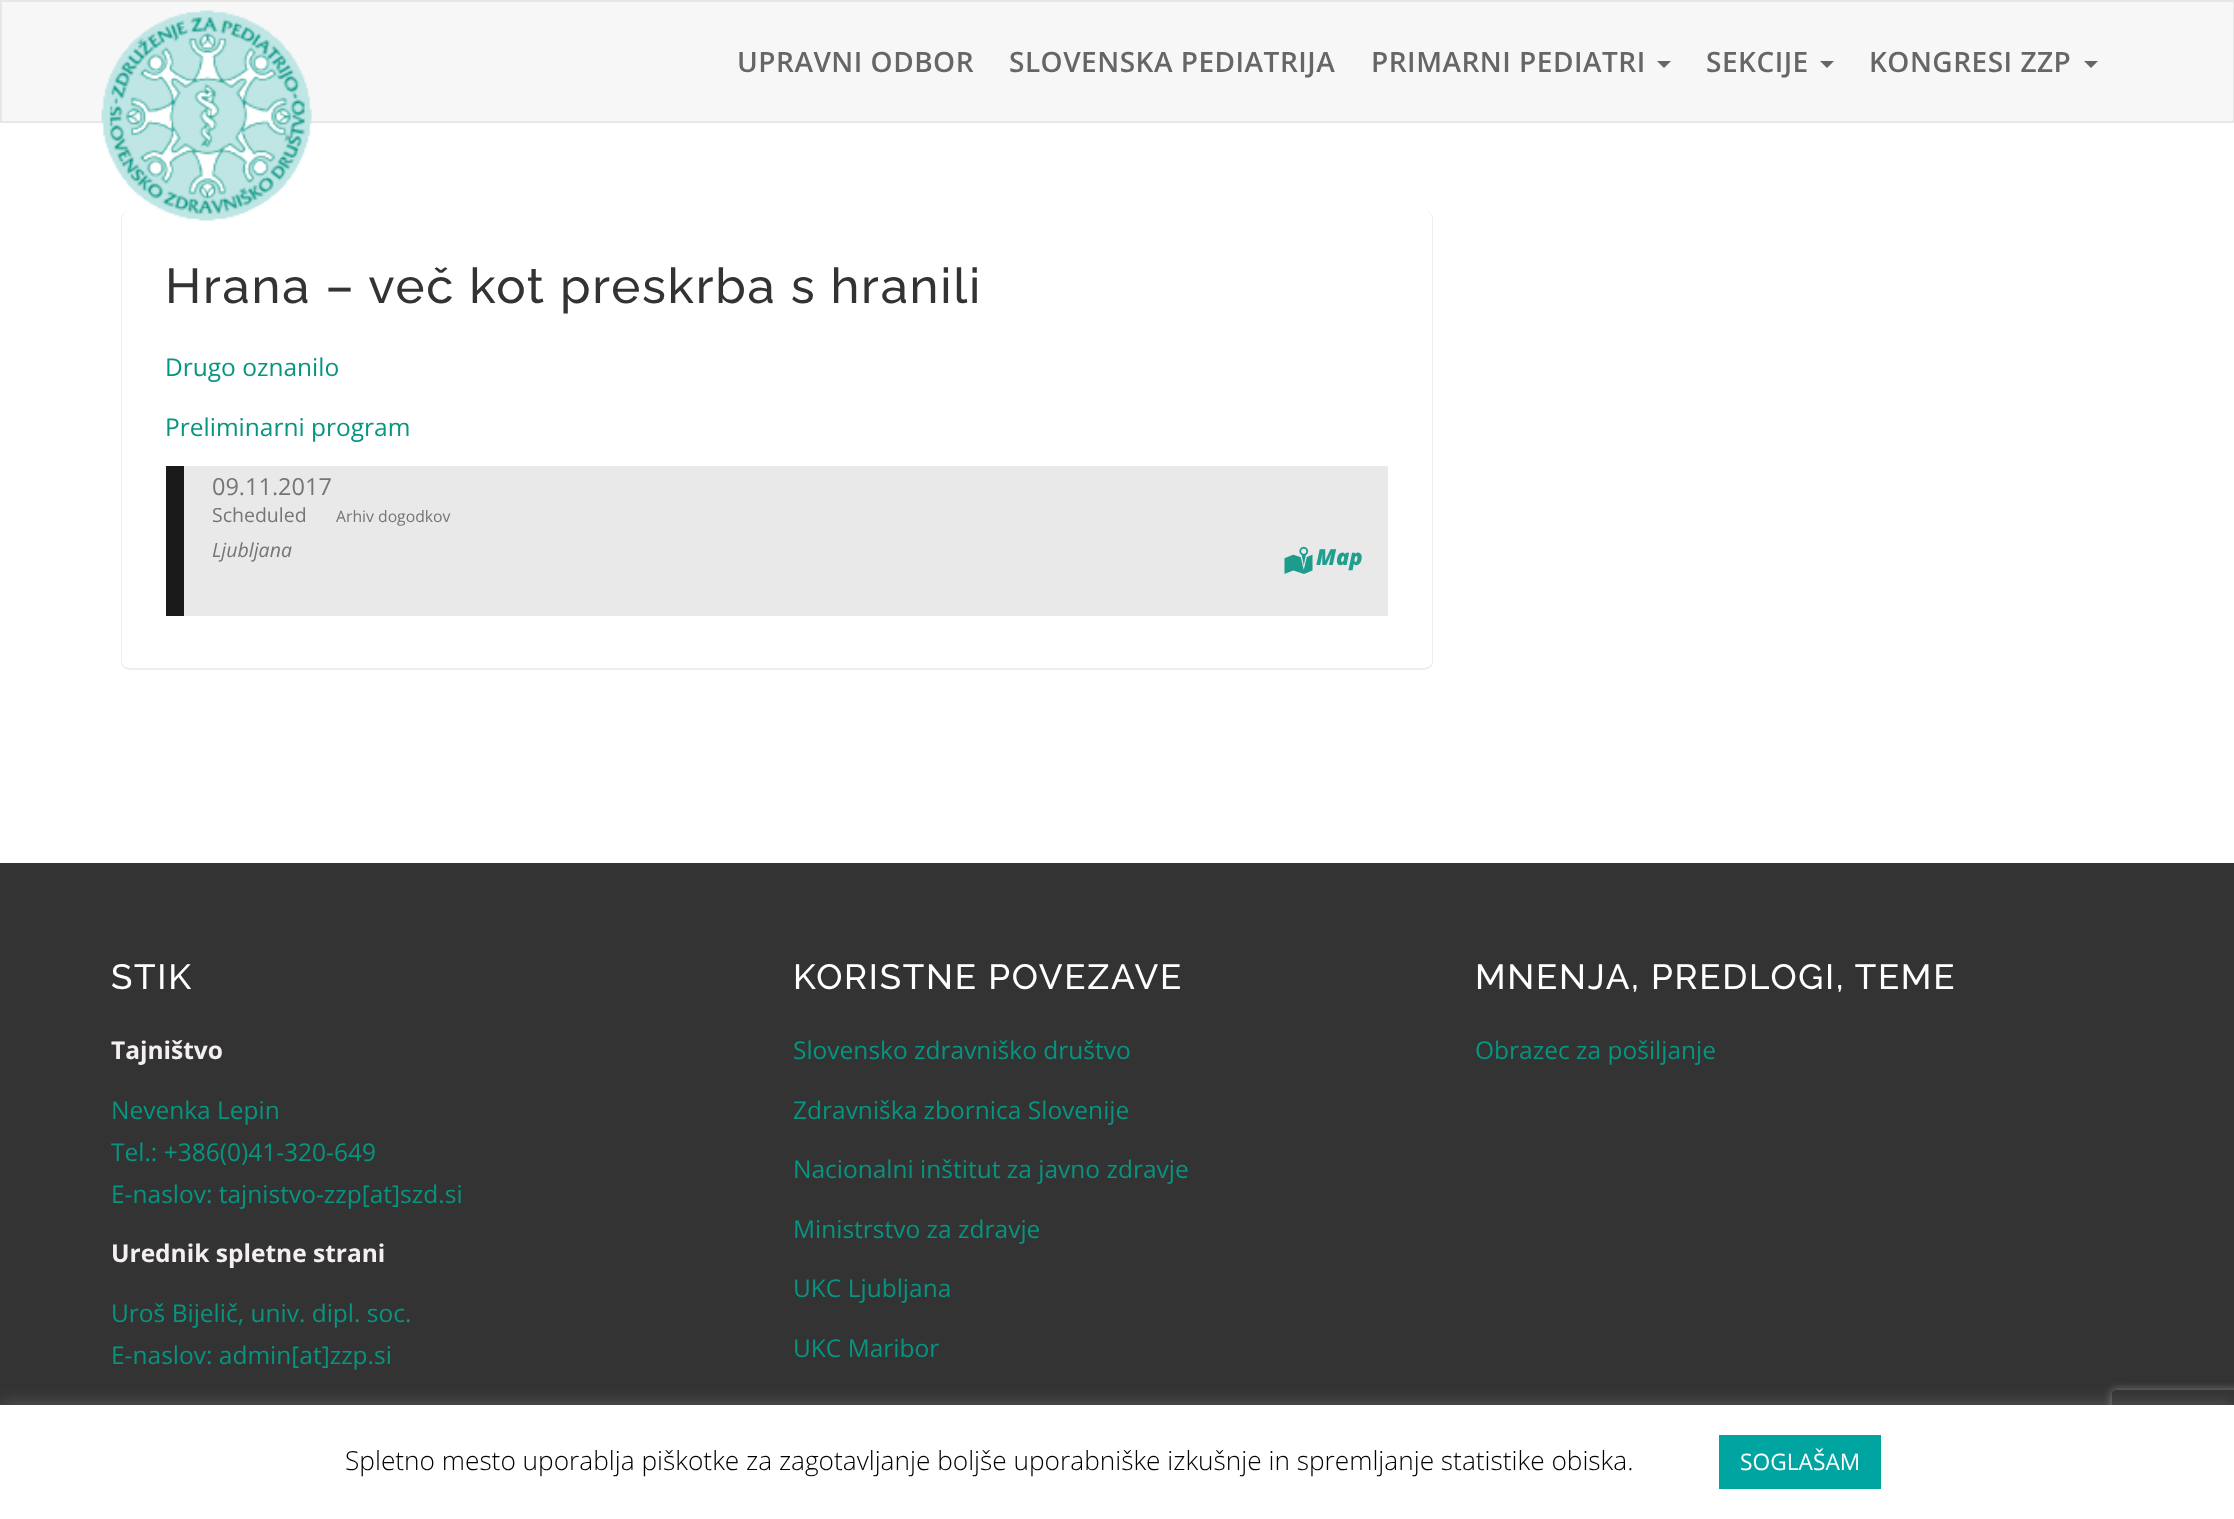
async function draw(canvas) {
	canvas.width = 2234;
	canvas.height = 1519;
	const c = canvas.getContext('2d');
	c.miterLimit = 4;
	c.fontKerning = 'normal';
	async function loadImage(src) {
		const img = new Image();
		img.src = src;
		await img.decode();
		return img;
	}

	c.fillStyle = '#fff';
	c.fillRect(0, 0, 2234, 1519);
	c.fillStyle = '#f7f7f7';
	c.beginPath();
	c.rect(1, 1, 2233, 121);
	c.fill();
	c.strokeStyle = '#e7e7e7';
	c.lineWidth = 2;
	c.stroke();
	c.fillStyle = '#eee';
	c.beginPath();
	c.moveTo(130, 210);
	c.lineTo(1424, 210);
	c.bezierCurveTo(1429, 210, 1433, 214, 1433, 219);
	c.lineTo(1433, 662);
	c.bezierCurveTo(1433, 666, 1429, 670, 1424, 670);
	c.lineTo(130, 670);
	c.bezierCurveTo(125, 670, 121, 666, 121, 662);
	c.lineTo(121, 219);
	c.bezierCurveTo(121, 214, 125, 210, 130, 210);
	c.closePath();
	c.moveTo(130, 210);
	c.lineTo(1424, 210);
	c.bezierCurveTo(1428, 210, 1432, 214, 1432, 219);
	c.lineTo(1432, 662);
	c.bezierCurveTo(1432, 665, 1428, 668, 1424, 668);
	c.lineTo(130, 668);
	c.bezierCurveTo(126, 668, 122, 665, 122, 662);
	c.lineTo(122, 219);
	c.bezierCurveTo(122, 214, 126, 210, 130, 210);
	c.closePath();
	c.fill('evenodd');
	c.drawImage(await loadImage('img1.png'), 101, 10, 211, 211);
	c.letterSpacing = '0.5px';
	c.font = '600 28px Open Sans';
	c.fillStyle = '#666';
	for (const [text, x, y] of [
		['UPRAVNI ODBOR', 737, 72],
		['SLOVENSKA PEDIATRIJA', 1009, 72],
		['PRIMARNI PEDIATRI', 1371, 72],
	]) {
		c.fillText(text, x, y);
	}
	c.beginPath();
	c.moveTo(1657, 61);
	c.lineTo(1671, 61);
	c.lineTo(1664, 68);
	c.closePath();
	c.fill();
	c.fillText('SEKCIJE', 1706, 72);
	c.beginPath();
	c.moveTo(1820, 61);
	c.lineTo(1834, 61);
	c.lineTo(1827, 68);
	c.closePath();
	c.fill();
	c.fillText('KONGRESI ZZP', 1869, 72);
	c.beginPath();
	c.moveTo(2084, 61);
	c.lineTo(2098, 61);
	c.lineTo(2091, 68);
	c.closePath();
	c.fill();
	c.letterSpacing = '1.75px';
	c.font = '500 49px Raleway';
	c.fillStyle = '#333';
	c.fillText('Hrana – več kot preskrba s hranili', 165, 303);
	c.letterSpacing = '0px';
	c.font = '24.5px Open Sans';
	c.fillStyle = '#079481';
	c.fillText('Drugo oznanilo', 165, 376);
	c.fillText('Preliminarni program', 165, 436);
	c.fillStyle = '#e9e9e9';
	c.fillRect(184, 466, 1204, 150);
	c.fillStyle = '#1a1a1a';
	c.fillRect(166, 466, 18, 150);
	c.font = '23.5px Open Sans';
	c.fillStyle = '#757575';
	c.fillText('09.11.2017', 212, 495);
	c.font = '19.5px Open Sans';
	c.fillText('Scheduled', 212, 522);
	c.font = '15.75px Open Sans';
	c.fillText('Arhiv dogodkov', 336, 522);
	c.font = 'italic 19.5px Open Sans';
	c.fillText('Ljubljana', 212, 557);
	c.drawImage(await loadImage('img2.png'), 1284, 546, 29, 28);
	c.font = 'italic 800 22px Open Sans';
	c.fillStyle = '#209f8e';
	c.fillText('Map', 1316, 565);
	c.fillStyle = '#333';
	c.fillRect(0, 863, 2234, 542);
	c.letterSpacing = '1.75px';
	c.font = '500 35px Raleway';
	c.fillStyle = '#fff';
	c.fillText('STIK', 111, 989);
	c.letterSpacing = '0px';
	c.font = 'bold 24.5px Open Sans';
	c.fillStyle = '#f5f0f0';
	c.fillText('Tajništvo', 111, 1059);
	c.font = '24.5px Open Sans';
	c.fillStyle = '#079481';
	for (const [text, x, y] of [
		['Nevenka Lepin', 111, 1119],
		['Tel.: +386(0)41-320-649', 111, 1161],
		['E-naslov: tajnistvo-zzp[at]szd.si', 111, 1203],
	]) {
		c.fillText(text, x, y);
	}
	c.font = 'bold 24.5px Open Sans';
	c.fillStyle = '#f5f0f0';
	c.fillText('Urednik spletne strani', 111, 1262);
	c.font = '24.5px Open Sans';
	c.fillStyle = '#079481';
	c.fillText('Uroš Bijelič, univ. dipl. soc.', 111, 1322);
	c.fillText('E-naslov: admin[at]zzp.si', 111, 1364);
	c.letterSpacing = '1.75px';
	c.font = '500 35px Raleway';
	c.fillStyle = '#fff';
	c.fillText('KORISTNE POVEZAVE', 793, 989);
	c.letterSpacing = '0px';
	c.font = '24.5px Open Sans';
	c.fillStyle = '#079481';
	for (const [text, x, y] of [
		['Slovensko zdravniško društvo', 793, 1059],
		['Zdravniška zbornica Slovenije', 793, 1119],
		['Nacionalni inštitut za javno zdravje', 793, 1178],
		['Ministrstvo za zdravje', 793, 1238],
		['UKC Ljubljana', 793, 1297],
		['UKC Maribor', 793, 1357],
	]) {
		c.fillText(text, x, y);
	}
	c.letterSpacing = '1.75px';
	c.font = '500 35px Raleway';
	c.fillStyle = '#fff';
	c.fillText('MNENJA, PREDLOGI, TEME', 1475, 989);
	c.letterSpacing = '0px';
	c.font = '24.5px Open Sans';
	c.fillStyle = '#079481';
	c.fillText('Obrazec za pošiljanje', 1475, 1059);
	c.fillStyle = '#acabab4d';
	c.filter = 'blur(9px)';
	c.beginPath();
	c.rect(0, 1404, 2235, 113);
	c.fill();
	c.filter = 'none';
	c.save();
	c.beginPath();
	c.moveTo(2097, 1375);
	c.lineTo(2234, 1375);
	c.lineTo(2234, 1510);
	c.lineTo(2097, 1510);
	c.closePath();
	c.moveTo(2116, 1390);
	c.lineTo(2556, 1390);
	c.bezierCurveTo(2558, 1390, 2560, 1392, 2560, 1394);
	c.lineTo(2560, 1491);
	c.bezierCurveTo(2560, 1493, 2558, 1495, 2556, 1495);
	c.lineTo(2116, 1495);
	c.bezierCurveTo(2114, 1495, 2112, 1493, 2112, 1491);
	c.lineTo(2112, 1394);
	c.bezierCurveTo(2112, 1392, 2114, 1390, 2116, 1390);
	c.closePath();
	c.clip('evenodd');
	c.fillStyle = '#808080';
	c.filter = 'blur(4.5px)';
	c.beginPath();
	c.roundRect(2112, 1390, 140, 105, 4);
	c.fill();
	c.filter = 'none';
	c.restore();
	c.fillStyle = '#fff';
	c.fillRect(0, 1405, 2234, 114);
	c.font = '300 26.25px Open Sans';
	c.fillStyle = '#000';
	c.fillText('Spletno mesto uporablja piškotke za zagotavljanje boljše uporabniške izkušnje in spremljanje statistike obiska.', 345, 1470);
	c.fillStyle = '#00a5a2';
	c.fillRect(1719, 1435, 162, 54);
	c.font = '22.75px Open Sans';
	c.fillStyle = '#fff';
	c.fillText('SOGLAŠAM', 1740, 1470);
}

draw(document.querySelector('canvas'));
